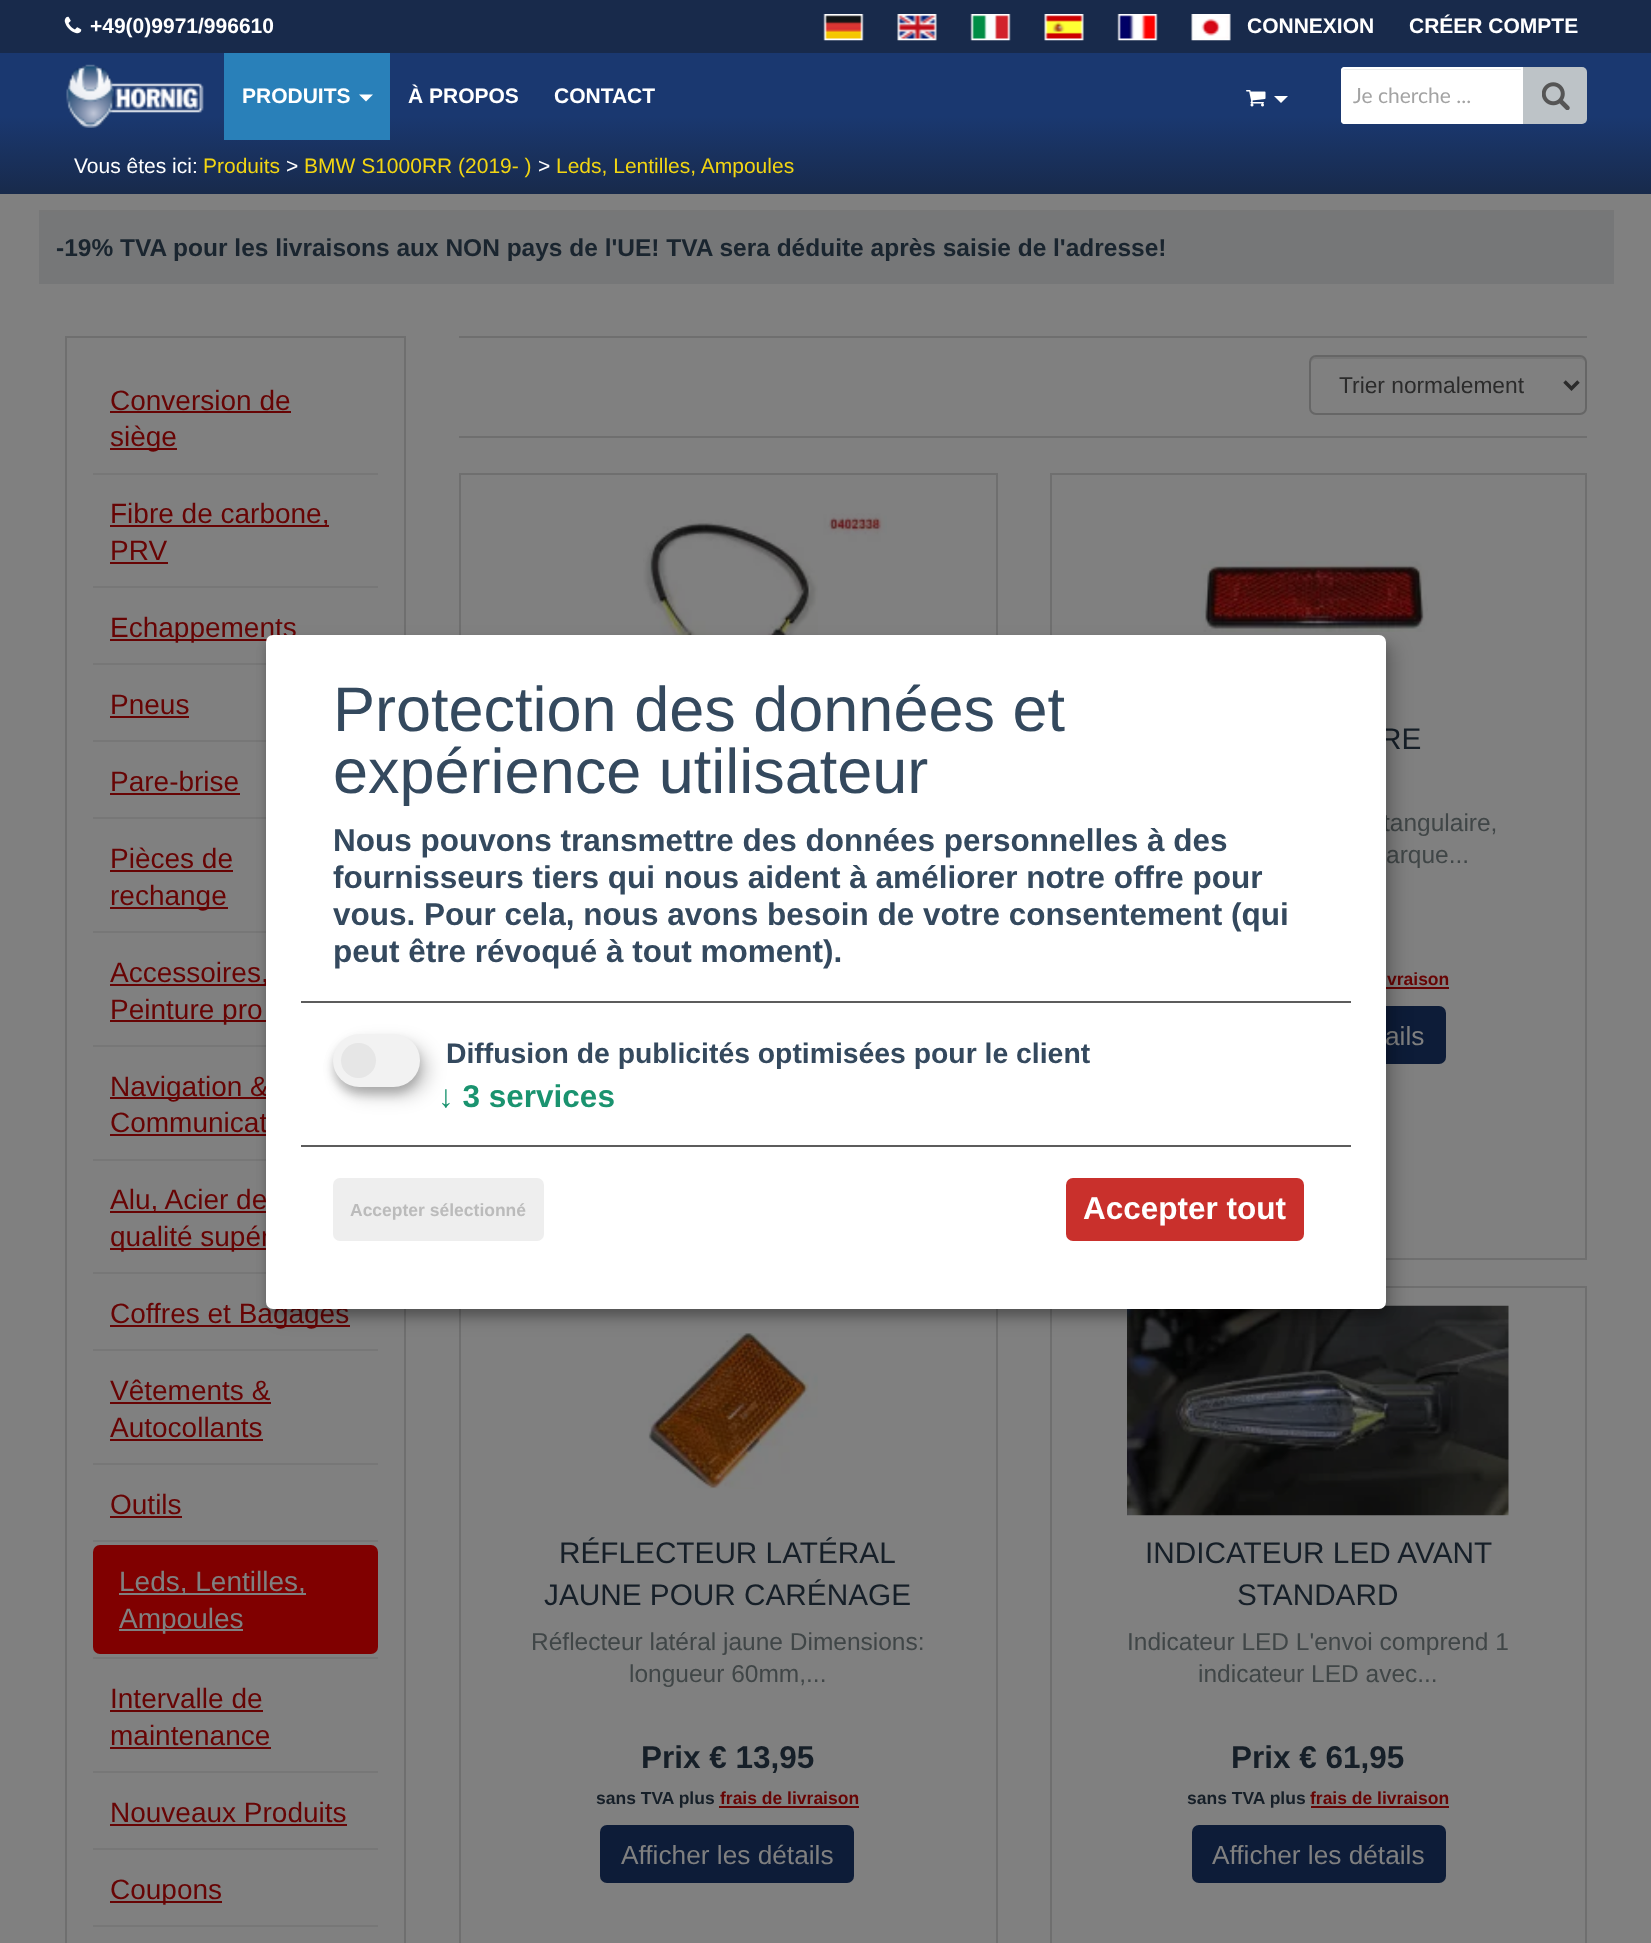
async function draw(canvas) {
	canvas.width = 1651;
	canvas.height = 1943;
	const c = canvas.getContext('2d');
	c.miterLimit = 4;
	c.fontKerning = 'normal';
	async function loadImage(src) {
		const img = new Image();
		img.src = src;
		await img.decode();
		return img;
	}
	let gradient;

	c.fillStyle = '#808080';
	c.fillRect(0, 0, 1651, 1943);
	gradient = c.createLinearGradient(826, 0, 826, 194);
	gradient.addColorStop(0.6, '#1a3870');
	gradient.addColorStop(1, '#182a4b');
	c.fillStyle = gradient;
	c.fillRect(0, 53, 1651, 141);
	c.fillStyle = '#182a4b';
	c.fillRect(0, 0, 1651, 53);
	c.drawImage(await loadImage('img1.png'), 64, 16, 18, 18);
	c.font = 'bold 21px Liberation Sans';
	c.fillStyle = '#fff';
	c.fillText('+49(0)9971/996610', 90, 33);
	c.drawImage(await loadImage('img2.png'), 823, 14, 41, 27);
	c.drawImage(await loadImage('img3.png'), 897, 14, 40, 27);
	c.drawImage(await loadImage('img4.png'), 970, 14, 41, 27);
	c.drawImage(await loadImage('img5.png'), 1044, 14, 40, 27);
	c.drawImage(await loadImage('img6.png'), 1117, 14, 41, 27);
	c.drawImage(await loadImage('img7.png'), 1191, 14, 40, 27);
	c.fillText('CONNEXION', 1247, 33);
	c.fillText('CRÉER COMPTE', 1409, 33);
	c.drawImage(await loadImage('img8.png'), 66, 64, 138, 64);
	c.fillStyle = '#2980b9';
	c.fillRect(224, 53, 166, 87);
	c.fillStyle = '#fff';
	c.fillText('PRODUITS', 242, 103);
	c.beginPath();
	c.moveTo(359, 94.5);
	c.lineTo(373, 94.5);
	c.lineTo(366, 101.5);
	c.closePath();
	c.fill();
	c.fillText('À PROPOS', 408, 103);
	c.fillText('CONTACT', 554, 103);
	c.drawImage(await loadImage('img9.png'), 1246, 90, 20, 17);
	c.beginPath();
	c.moveTo(1274, 96);
	c.lineTo(1288, 96);
	c.lineTo(1281, 103);
	c.closePath();
	c.fill();
	c.beginPath();
	c.roundRect(1341, 67, 182, 57, [4, 0, 0, 4]);
	c.fill();
	c.fillStyle = '#ececec';
	c.beginPath();
	c.moveTo(1344, 70);
	c.lineTo(1521, 70);
	c.lineTo(1521, 68);
	c.lineTo(1344, 68);
	c.bezierCurveTo(1342, 68, 1342, 70, 1342, 72);
	c.bezierCurveTo(1342, 71, 1343, 70, 1344, 70);
	c.closePath();
	c.fill();
	c.beginPath();
	c.roundRect(1342, 68, 180, 55, [3, 0, 0, 3]);
	c.strokeStyle = '#fff';
	c.lineWidth = 2;
	c.stroke();
	c.font = '21px Lato';
	c.fillStyle = '#a3a3a3';
	c.fillText('Je cherche ...', 1353, 103);
	c.fillStyle = '#bdc3c7';
	c.beginPath();
	c.roundRect(1523, 67, 64, 57, [0, 5, 5, 0]);
	c.fill();
	c.drawImage(await loadImage('img10.png'), 1542, 82, 28, 28);
	c.font = '21px Liberation Sans';
	c.fillStyle = '#fff';
	c.fillText('Vous êtes ici:', 74, 173);
	c.fillStyle = '#f2d513';
	c.fillText('Produits', 203, 173);
	c.fillStyle = '#fff';
	c.fillText('>', 286, 173);
	c.fillStyle = '#f2d513';
	c.fillText('BMW S1000RR (2019- )', 304, 173);
	c.fillStyle = '#fff';
	c.fillText('>', 538, 173);
	c.fillStyle = '#f2d513';
	c.fillText('Leds, Lentilles, Ampoules', 556, 173);
	c.fillStyle = '#767778';
	c.fillRect(39, 212, 1575, 72);
	c.fillStyle = '#777';
	c.fillRect(39, 210, 1575, 2);
	c.font = 'bold 24.5px Liberation Sans';
	c.fillStyle = '#1a252f';
	c.fillText('-19% TVA pour les livraisons aux NON pays de l\'UE! TVA sera déduite après saisie de l\'adresse!', 56, 256);
	c.strokeStyle = '#6f6f6f';
	c.strokeRect(66, 337, 339, 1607);
	c.fillStyle = '#777';
	c.fillRect(93, 473, 285, 2);
	c.font = '28px Liberation Sans';
	c.fillStyle = '#670404';
	c.fillText('Conversion de', 110, 410);
	c.fillRect(110, 411, 181, 2);
	c.fillRect(110, 448, 67, 2);
	c.fillText('siège', 110, 446);
	c.fillStyle = '#777';
	c.fillRect(93, 586, 285, 2);
	c.fillStyle = '#670404';
	c.fillRect(110, 525, 219, 2);
	c.fillText('Fibre de carbone,', 110, 523);
	c.fillText('PRV', 110, 560);
	for (const [x, y, w, h, color] of [
		[110, 562, 58, 2, '#670404'],
		[93, 663, 173, 2, '#777'],
		[110, 639, 157, 2, '#670404'],
	]) {
		c.fillStyle = color;
		c.fillRect(x, y, w, h);
	}
	c.fillText('Echappements', 110, 637);
	c.fillStyle = '#777';
	c.fillRect(93, 740, 173, 2);
	c.fillStyle = '#670404';
	c.fillText('Pneus', 110, 714);
	c.fillRect(110, 716, 79, 2);
	c.fillStyle = '#777';
	c.fillRect(93, 817, 173, 2);
	c.fillStyle = '#670404';
	c.fillText('Pare-brise', 110, 791);
	c.fillRect(110, 793, 130, 2);
	c.fillStyle = '#777';
	c.fillRect(93, 931, 173, 2);
	c.fillStyle = '#670404';
	c.fillText('Pièces de', 110, 868);
	c.fillRect(110, 870, 123, 2);
	c.fillRect(110, 907, 118, 2);
	c.fillText('rechange', 110, 905);
	c.fillStyle = '#777';
	c.fillRect(93, 1045, 173, 2);
	c.fillStyle = '#670404';
	c.fillRect(110, 984, 160, 2);
	c.fillText('Accessoires,', 110, 982);
	c.fillRect(110, 1020, 156, 2);
	c.fillText('Peinture pro', 110, 1019);
	c.fillStyle = '#777';
	c.fillRect(93, 1159, 173, 2);
	c.fillStyle = '#670404';
	c.fillRect(110, 1097, 160, 2);
	c.fillText('Navigation &', 110, 1096);
	c.fillText('Communicat', 110, 1132);
	for (const [x, y, w, h, color] of [
		[110, 1134, 156, 2, '#670404'],
		[93, 1272, 173, 2, '#777'],
		[110, 1211, 158, 2, '#670404'],
	]) {
		c.fillStyle = color;
		c.fillRect(x, y, w, h);
	}
	c.fillText('Alu, Acier de', 110, 1209);
	c.fillRect(110, 1248, 156, 2);
	c.fillText('qualité supér', 110, 1246);
	c.fillStyle = '#777';
	c.fillRect(93, 1349, 285, 2);
	c.fillStyle = '#670404';
	c.fillRect(110, 1325, 240, 2);
	c.fillText('Coffres et Bagages', 110, 1323);
	c.fillStyle = '#777';
	c.fillRect(93, 1463, 285, 2);
	c.fillStyle = '#670404';
	c.fillText('Vêtements &', 110, 1400);
	c.fillRect(110, 1402, 161, 2);
	c.fillText('Autocollants', 110, 1437);
	c.fillRect(110, 1439, 153, 2);
	c.fillStyle = '#777';
	c.fillRect(93, 1540, 285, 2);
	c.fillStyle = '#670404';
	c.fillText('Outils', 110, 1514);
	c.fillRect(110, 1516, 72, 2);
	c.fillStyle = '#777';
	c.fillRect(93, 1657, 285, 2);
	c.fillStyle = '#800000';
	c.beginPath();
	c.roundRect(93, 1545, 285, 109, 7);
	c.fill();
	c.fillStyle = '#808080';
	c.fillRect(119, 1593, 187, 2);
	c.fillText('Leds, Lentilles,', 119, 1591);
	c.fillRect(119, 1629, 124, 2);
	c.fillText('Ampoules', 119, 1628);
	c.fillStyle = '#777';
	c.fillRect(93, 1771, 285, 2);
	c.fillStyle = '#670404';
	c.fillText('Intervalle de', 110, 1708);
	c.fillRect(110, 1710, 153, 2);
	c.fillText('maintenance', 110, 1745);
	c.fillRect(110, 1747, 161, 2);
	c.fillStyle = '#777';
	c.fillRect(93, 1848, 285, 2);
	c.fillStyle = '#670404';
	c.fillText('Nouveaux Produits', 110, 1822);
	for (const [x, y, w, h, color] of [
		[110, 1824, 237, 2, '#670404'],
		[93, 1925, 285, 2, '#777'],
		[110, 1901, 112, 2, '#670404'],
	]) {
		c.fillStyle = color;
		c.fillRect(x, y, w, h);
	}
	c.fillText('Coupons', 110, 1899);
	c.fillStyle = '#6f6f6f';
	c.fillRect(459, 336, 1128, 2);
	c.fillRect(459, 436, 1128, 2);
	c.fillStyle = '#767676';
	c.beginPath();
	c.moveTo(1316, 359);
	c.lineTo(1580, 359);
	c.bezierCurveTo(1583, 359, 1586, 361, 1586, 364);
	c.lineTo(1586, 362);
	c.bezierCurveTo(1586, 359, 1584, 357, 1581, 357);
	c.lineTo(1316, 357);
	c.bezierCurveTo(1313, 357, 1311, 359, 1311, 362);
	c.lineTo(1311, 364);
	c.bezierCurveTo(1311, 361, 1313, 359, 1316, 359);
	c.closePath();
	c.fill();
	c.beginPath();
	c.roundRect(1310, 356, 276, 58, 6);
	c.strokeStyle = '#666';
	c.stroke();
	c.beginPath();
	c.moveTo(1564.5, 381.5);
	c.lineTo(1571.5, 388.5);
	c.lineTo(1578.5, 381.5);
	c.strokeStyle = '#2b2b2b';
	c.lineWidth = 3.5;
	c.stroke();
	c.font = '22.75px Liberation Sans';
	c.fillStyle = '#2b2b2b';
	c.fillText('Trier normalement', 1339, 393);
	c.strokeStyle = '#6f6f6f';
	c.lineWidth = 2;
	c.strokeRect(460, 474, 537, 785);
	c.drawImage(await loadImage('img11.png'), 643, 513, 244, 122);
	c.strokeRect(1051, 474, 535, 785);
	c.drawImage(await loadImage('img12.png'), 1201, 561, 227, 71);
	c.font = '29.75px Liberation Sans';
	c.fillStyle = '#161f28';
	c.fillText('RE', 1380, 749);
	c.font = '24.5px Liberation Sans';
	c.fillStyle = '#404647';
	c.fillText('tangulaire,', 1383, 831);
	c.fillText('arque...', 1386, 863);
	c.font = 'bold 17.5px Liberation Sans';
	c.fillStyle = '#670404';
	c.fillText('vraison', 1387, 985);
	c.fillRect(1386, 987, 63, 2);
	c.fillStyle = '#0d1c38';
	c.beginPath();
	c.roundRect(1192, 1006, 254, 58, 7);
	c.fill();
	c.font = '26.25px Liberation Sans';
	c.fillStyle = '#808080';
	c.fillText('ails', 1385, 1045);
	c.strokeRect(460, 1287, 537, 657);
	c.drawImage(await loadImage('img13.png'), 648, 1333, 170, 156);
	c.font = '29.75px Liberation Sans';
	c.fillStyle = '#161f28';
	c.fillText('RÉFLECTEUR LATÉRAL', 559, 1563);
	c.fillText('JAUNE POUR CARÉNAGE', 544, 1605);
	c.font = '24.5px Liberation Sans';
	c.fillStyle = '#404647';
	c.fillText('Réflecteur latéral jaune Dimensions:', 531, 1650);
	c.fillText('longueur 60mm,...', 629, 1682);
	c.font = 'bold 31.5px Liberation Sans';
	c.fillStyle = '#161f28';
	c.fillText('Prix € 13,95', 641, 1768);
	c.font = 'bold 17.5px Liberation Sans';
	c.fillText('sans TVA plus', 596, 1804);
	c.fillStyle = '#670404';
	c.fillText('frais de livraison', 720, 1804);
	c.fillRect(719, 1806, 140, 2);
	c.fillStyle = '#0d1c38';
	c.beginPath();
	c.roundRect(600, 1825, 254, 58, 7);
	c.fill();
	c.font = '26.25px Liberation Sans';
	c.fillStyle = '#808080';
	c.fillText('Afficher les détails', 621, 1864);
	c.strokeRect(1051, 1287, 535, 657);
	c.drawImage(await loadImage('img14.png'), 1127, 1305, 382, 211);
	c.font = '29.75px Liberation Sans';
	c.fillStyle = '#161f28';
	c.fillText('INDICATEUR LED AVANT', 1145, 1563);
	c.fillText('STANDARD', 1237, 1605);
	c.font = '24.5px Liberation Sans';
	c.fillStyle = '#404647';
	c.fillText('Indicateur LED L\'envoi comprend 1', 1127, 1650);
	c.fillText('indicateur LED avec...', 1198, 1682);
	c.font = 'bold 31.5px Liberation Sans';
	c.fillStyle = '#161f28';
	c.fillText('Prix € 61,95', 1231, 1768);
	c.font = 'bold 17.5px Liberation Sans';
	c.fillText('sans TVA plus', 1187, 1804);
	c.fillStyle = '#670404';
	c.fillText('frais de livraison', 1310, 1804);
	c.fillRect(1311, 1806, 138, 2);
	c.fillStyle = '#0d1c38';
	c.beginPath();
	c.roundRect(1192, 1825, 254, 58, 7);
	c.fill();
	c.font = '26.25px Liberation Sans';
	c.fillStyle = '#808080';
	c.fillText('Afficher les détails', 1212, 1864);
	c.fillStyle = '#00000030';
	c.filter = 'blur(9px)';
	c.beginPath();
	c.roundRect(275, 644, 1120, 674, 7);
	c.fill();
	c.filter = 'none';
	c.fillStyle = '#00000033';
	c.filter = 'blur(5px)';
	c.beginPath();
	c.roundRect(266, 642, 1120, 674, 7);
	c.fill();
	c.filter = 'none';
	c.fillStyle = '#fff';
	c.beginPath();
	c.roundRect(266, 635, 1120, 674, 7);
	c.fill();
	c.fillStyle = '#5c5c5c';
	c.fillRect(301, 1001, 1050, 2);
	c.font = '63px Liberation Sans';
	c.fillStyle = '#34495e';
	c.fillText('Protection des données et', 333, 731);
	c.fillText('expérience utilisateur', 333, 793);
	c.font = 'bold 31.5px Liberation Sans';
	for (const [text, x, y] of [
		['Nous pouvons transmettre des données personnelles à des', 333, 851],
		['fournisseurs tiers qui nous aident à améliorer notre offre pour', 333, 888],
		['vous. Pour cela, nous avons besoin de votre consentement (qui', 333, 925],
		['peut être révoqué à tout moment).', 333, 962],
	]) {
		c.fillText(text, x, y);
	}
	c.fillStyle = '#00000030';
	c.filter = 'blur(9px)';
	c.beginPath();
	c.roundRect(341, 1043, 88, 53, 26.5);
	c.fill();
	c.filter = 'none';
	c.fillStyle = '#00000033';
	c.filter = 'blur(5px)';
	c.beginPath();
	c.roundRect(333, 1041, 87, 53, 26.5);
	c.fill();
	c.filter = 'none';
	c.fillStyle = '#f2f2f2';
	c.beginPath();
	c.roundRect(333, 1034, 87, 53, 26.5);
	c.fill();
	c.fillStyle = '#e6e6e6';
	c.beginPath();
	c.arc(358.5, 1060.5, 17.5, 0, 2 * Math.PI);
	c.fill();
	c.font = 'bold 28.35px Liberation Sans';
	c.fillStyle = '#34495e';
	c.fillText('Diffusion de publicités optimisées pour le client', 446, 1063);
	c.font = 'bold 31.5px Liberation Sans';
	c.fillStyle = '#1a936f';
	c.fillText('↓ 3 services', 438, 1107);
	c.fillStyle = '#5c5c5c';
	c.fillRect(301, 1145, 1050, 2);
	c.fillStyle = '#eee';
	c.beginPath();
	c.roundRect(333, 1178, 211, 63, 7);
	c.fill();
	c.font = 'bold 17.5px Liberation Sans';
	c.fillStyle = '#bbb';
	c.fillText('Accepter sélectionné', 350, 1216);
	c.fillStyle = '#c9302c';
	c.beginPath();
	c.roundRect(1066, 1178, 238, 63, 7);
	c.fill();
	c.font = 'bold 31.5px Liberation Sans';
	c.fillStyle = '#fff';
	c.fillText('Accepter tout', 1083, 1219);
}

draw(document.querySelector('canvas'));
